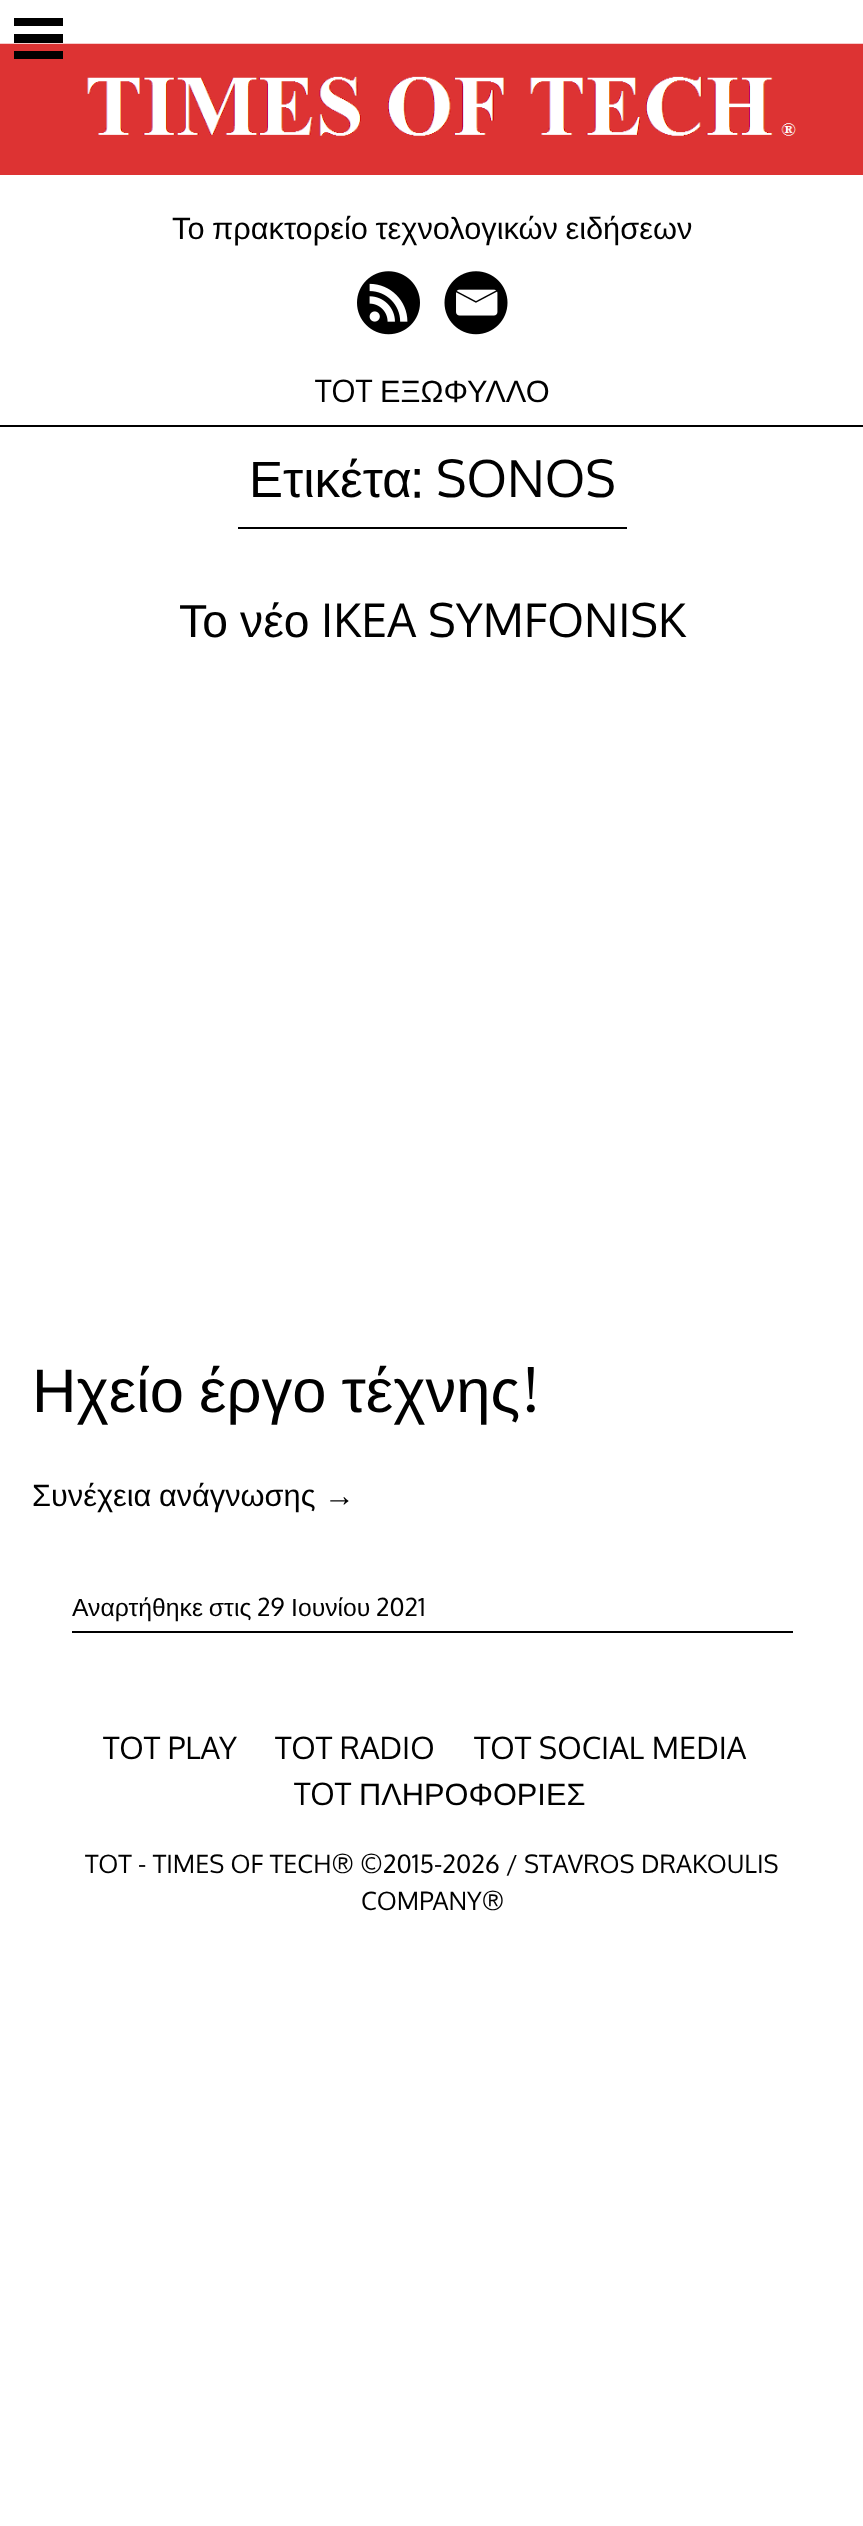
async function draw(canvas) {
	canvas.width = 863;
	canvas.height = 2526;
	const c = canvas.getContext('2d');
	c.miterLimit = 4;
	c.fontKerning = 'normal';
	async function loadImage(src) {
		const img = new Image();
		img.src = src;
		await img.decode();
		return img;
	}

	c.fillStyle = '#fff';
	c.fillRect(0, 0, 863, 2526);
	c.fillStyle = '#000';
	c.fillRect(14, 18, 49, 8);
	c.fillRect(14, 34, 49, 9);
	c.drawImage(await loadImage('img1.png'), 0, 43, 863, 132);
	c.fillRect(14, 51, 49, 8);
	c.fillRect(0, 425, 863, 2);
	c.wordSpacing = '-1px';
	c.font = '30.75px Liberation Sans';
	c.fillText('Το πρακτορείο τεχνολογικών ειδήσεων', 172, 239);
	c.drawImage(await loadImage('img2.png'), 357, 271, 63, 64);
	c.drawImage(await loadImage('img3.png'), 444, 271, 64, 64);
	c.wordSpacing = '0px';
	c.font = '30.75px Oxygen';
	c.fillText('TOT', 315, 402);
	c.font = '30.75px Liberation Sans';
	c.fillText('ΕΞΩΦΥΛΛΟ', 380, 402);
	c.fillRect(238, 527, 389, 2);
	c.font = '51px Liberation Sans';
	c.fillText('Ετικέτα', 249, 497);
	c.font = '51px Oxygen';
	c.fillText(': SONOS', 411, 497);
	c.font = '46.25px Liberation Sans';
	c.fillText('Το', 179, 637);
	c.fillText('νέο', 240, 637);
	c.font = '46.25px Oxygen';
	c.fillText('IKEA SYMFONISK', 321, 637);
	c.wordSpacing = '-2px';
	c.font = '61.5px Liberation Sans';
	c.fillText('Ηχείο έργο τέχνης', 32, 1412);
	c.wordSpacing = '0px';
	c.font = '61.5px Oxygen';
	c.fillText('!', 522, 1412);
	c.wordSpacing = '-1px';
	c.font = '30.75px Liberation Sans';
	c.fillText('Συνέχεια ανάγνωσης', 32, 1506);
	c.wordSpacing = '0px';
	c.fillText('→', 324, 1506);
	c.fillRect(72, 1631, 721, 2);
	c.wordSpacing = '-1px';
	c.font = '24.75px Liberation Sans';
	c.fillText('Αναρτήθηκε στις', 72, 1616);
	c.wordSpacing = '0px';
	c.font = '24.75px Oxygen';
	c.fillText('29', 257, 1616);
	c.font = '24.75px Liberation Sans';
	c.fillText('Ιουνίου', 291, 1616);
	c.font = '24.75px Oxygen';
	c.fillText('2021', 376, 1616);
	c.font = '30.75px Oxygen';
	for (const [text, x, y] of [
		['TOT PLAY', 103, 1759],
		['TOT RADIO', 275, 1759],
		['TOT SOCIAL MEDIA', 474, 1759],
		['TOT', 294, 1805],
	]) {
		c.fillText(text, x, y);
	}
	c.font = '30.75px Liberation Sans';
	c.fillText('ΠΛΗΡΟΦΟΡΙΕΣ', 359, 1805);
	c.font = '25.2px Oxygen';
	c.fillText('TOT - TIMES OF TECH® ©2015-2026 / STAVROS DRAKOULIS', 85, 1873);
	c.fillText('COMPANY®', 361, 1910);
}

draw(document.querySelector('canvas'));
